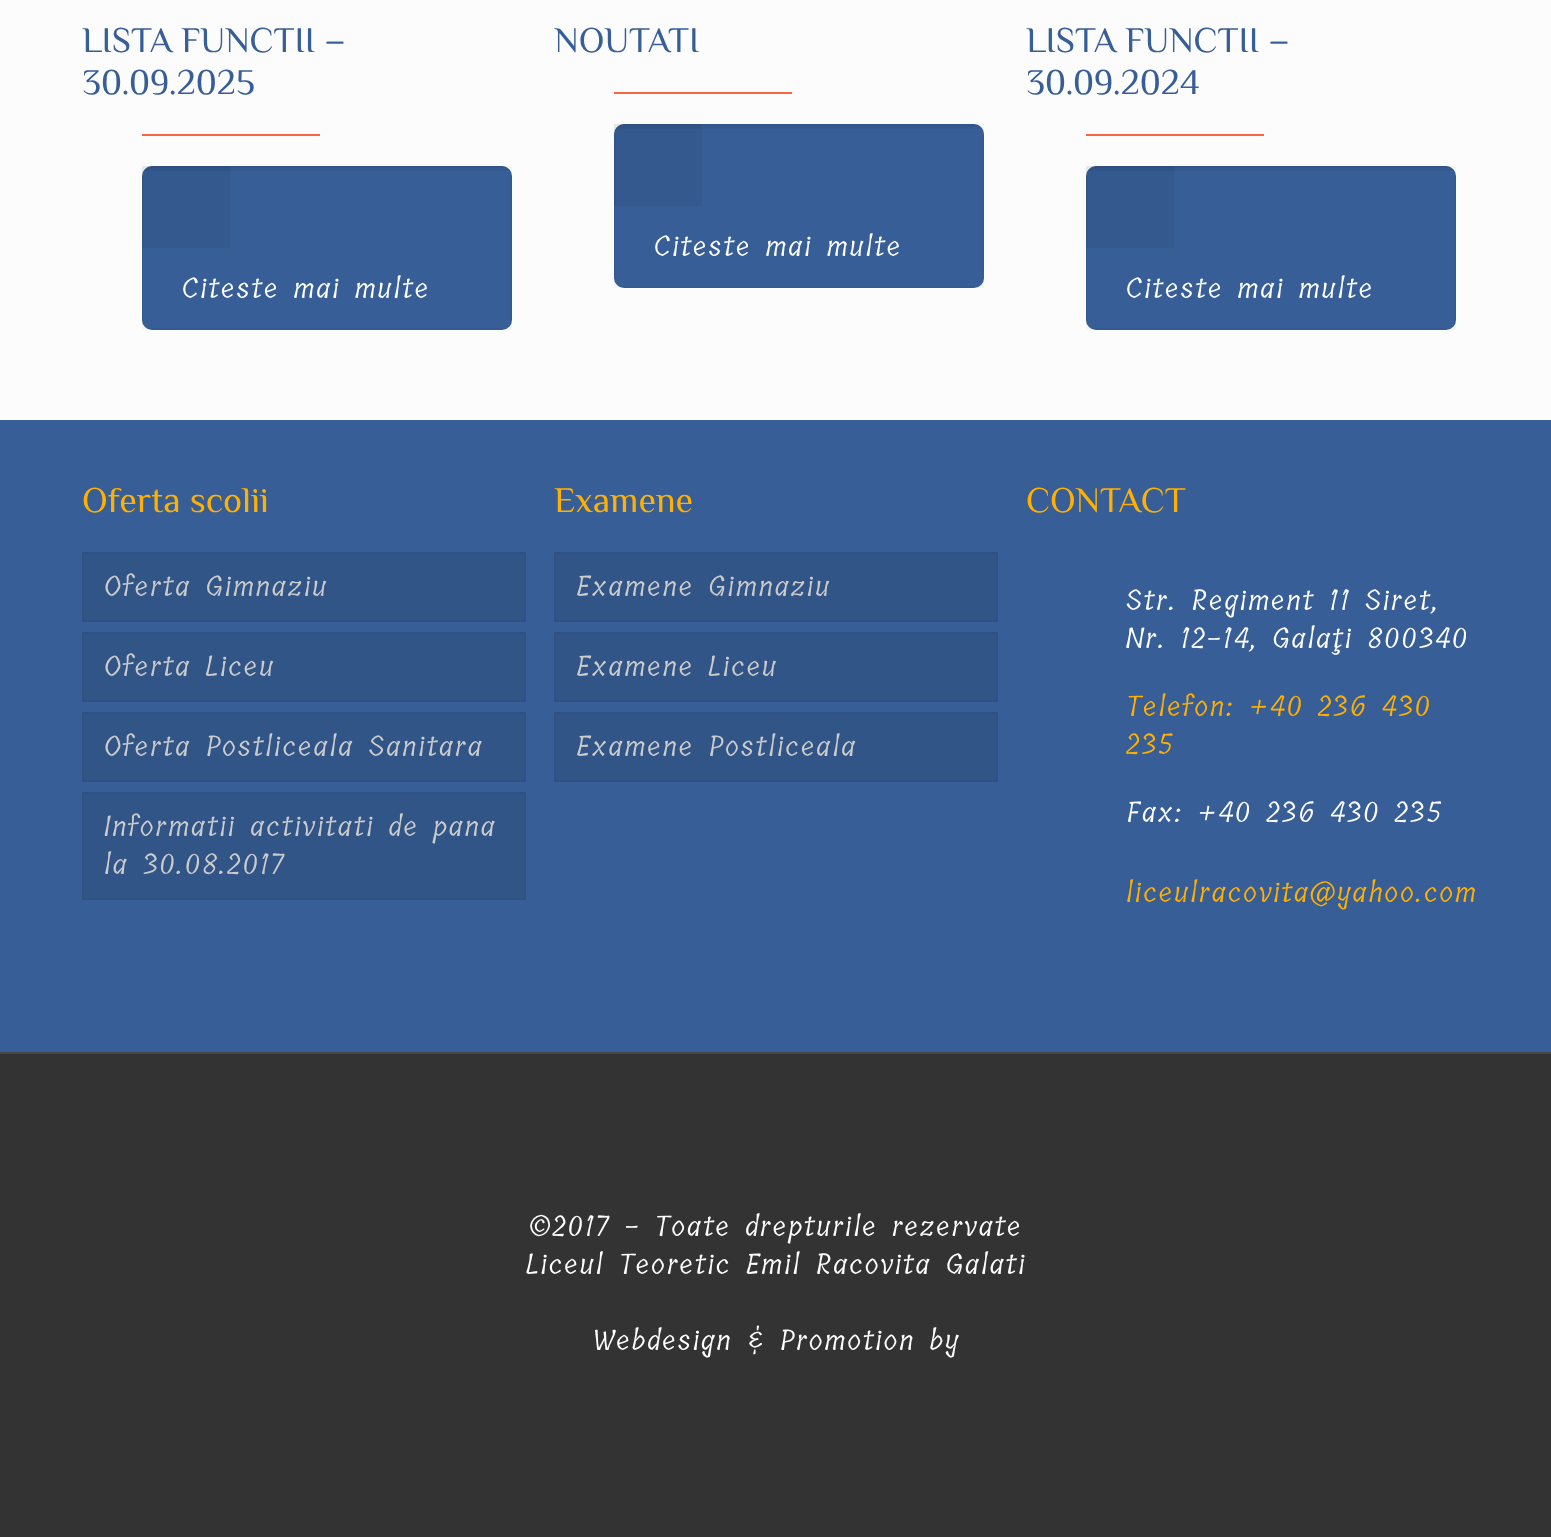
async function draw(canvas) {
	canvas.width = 1551;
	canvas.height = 1537;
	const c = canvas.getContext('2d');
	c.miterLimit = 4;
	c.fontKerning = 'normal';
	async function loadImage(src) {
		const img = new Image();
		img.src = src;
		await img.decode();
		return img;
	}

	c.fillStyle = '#fcfcfc';
	c.fillRect(0, 0, 1551, 1537);
	c.font = '36px Philosopher';
	c.fillStyle = '#375e97';
	c.fillText('LISTA FUNCTII –', 82, 52);
	c.fillText('30.09.2025', 82, 94);
	c.fillStyle = '#fb6542';
	c.fillRect(142, 134, 178, 2);
	c.fillStyle = '#375e97';
	c.beginPath();
	c.roundRect(142, 166, 370, 164, 10);
	c.fill();
	c.drawImage(await loadImage('img1.png'), 144, 166, 366, 5);
	c.strokeStyle = '#00000008';
	c.lineWidth = 2;
	c.strokeRect(143, 167, 368, 162);
	c.fillStyle = '#0000000d';
	c.fillRect(142, 166, 88, 82);
	c.letterSpacing = '2px';
	c.font = '28px Tillana';
	c.fillStyle = '#fff';
	c.fillText('Citeste mai multe', 182, 298);
	c.letterSpacing = '0px';
	c.font = '36px Philosopher';
	c.fillStyle = '#375e97';
	c.fillText('NOUTATI', 554, 52);
	c.fillStyle = '#fb6542';
	c.fillRect(614, 92, 178, 2);
	c.fillStyle = '#375e97';
	c.beginPath();
	c.roundRect(614, 124, 370, 164, 10);
	c.fill();
	c.drawImage(await loadImage('img1.png'), 616, 124, 366, 5);
	c.strokeRect(615, 125, 368, 162);
	c.fillStyle = '#0000000d';
	c.fillRect(614, 124, 88, 82);
	c.letterSpacing = '2px';
	c.font = '28px Tillana';
	c.fillStyle = '#fff';
	c.fillText('Citeste mai multe', 654, 256);
	c.letterSpacing = '0px';
	c.font = '36px Philosopher';
	c.fillStyle = '#375e97';
	c.fillText('LISTA FUNCTII –', 1026, 52);
	c.fillText('30.09.2024', 1026, 94);
	c.fillStyle = '#fb6542';
	c.fillRect(1086, 134, 178, 2);
	c.fillStyle = '#375e97';
	c.beginPath();
	c.roundRect(1086, 166, 370, 164, 10);
	c.fill();
	c.drawImage(await loadImage('img1.png'), 1088, 166, 366, 5);
	c.strokeRect(1087, 167, 368, 162);
	c.fillStyle = '#0000000d';
	c.fillRect(1086, 166, 88, 82);
	c.letterSpacing = '2px';
	c.font = '28px Tillana';
	c.fillStyle = '#fff';
	c.fillText('Citeste mai multe', 1126, 298);
	c.fillStyle = '#375e97';
	c.fillRect(0, 420, 1551, 632);
	c.letterSpacing = '0px';
	c.font = '36px Philosopher';
	c.fillStyle = '#ffb000';
	c.fillText('Oferta scolii', 82, 512);
	c.fillStyle = '#325588';
	c.beginPath();
	c.rect(83, 553, 442, 68);
	c.fill();
	c.strokeStyle = '#305283';
	c.stroke();
	c.letterSpacing = '2px';
	c.font = '28px Tillana';
	c.fillStyle = '#ccc';
	c.fillText('Oferta Gimnaziu', 104, 596);
	c.fillStyle = '#325588';
	c.beginPath();
	c.rect(83, 633, 442, 68);
	c.fill();
	c.stroke();
	c.fillStyle = '#ccc';
	c.fillText('Oferta Liceu', 104, 676);
	c.fillStyle = '#325588';
	c.beginPath();
	c.rect(83, 713, 442, 68);
	c.fill();
	c.stroke();
	c.fillStyle = '#ccc';
	c.fillText('Oferta Postliceala Sanitara', 104, 756);
	c.fillStyle = '#325588';
	c.beginPath();
	c.rect(83, 793, 442, 106);
	c.fill();
	c.stroke();
	c.fillStyle = '#ccc';
	c.fillText('Informatii activitati de pana', 104, 836);
	c.fillText('la 30.08.2017', 104, 874);
	c.letterSpacing = '0px';
	c.font = '36px Philosopher';
	c.fillStyle = '#ffb000';
	c.fillText('Examene', 554, 512);
	c.fillStyle = '#325588';
	c.beginPath();
	c.rect(555, 553, 442, 68);
	c.fill();
	c.stroke();
	c.letterSpacing = '2px';
	c.font = '28px Tillana';
	c.fillStyle = '#ccc';
	c.fillText('Examene Gimnaziu', 576, 596);
	c.fillStyle = '#325588';
	c.beginPath();
	c.rect(555, 633, 442, 68);
	c.fill();
	c.stroke();
	c.fillStyle = '#ccc';
	c.fillText('Examene Liceu', 576, 676);
	c.fillStyle = '#325588';
	c.beginPath();
	c.rect(555, 713, 442, 68);
	c.fill();
	c.stroke();
	c.fillStyle = '#ccc';
	c.fillText('Examene Postliceala', 576, 756);
	c.letterSpacing = '0px';
	c.font = '36px Philosopher';
	c.fillStyle = '#ffb000';
	c.fillText('CONTACT', 1026, 512);
	c.letterSpacing = '2px';
	c.font = '28px Tillana';
	c.fillStyle = '#fff';
	c.fillText('Str. Regiment 11 Siret,', 1126, 610);
	c.fillText('Nr. 12-14, Galaţi 800340', 1126, 648);
	c.fillStyle = '#ffb000';
	c.fillText('Telefon: +40 236 430', 1126, 716);
	c.fillText('235', 1126, 754);
	c.fillStyle = '#fff';
	c.fillText('Fax: +40 236 430 235', 1126, 822);
	c.fillStyle = '#ffb000';
	c.fillText('liceulracovita@yahoo.com', 1126, 902);
	c.fillStyle = '#333';
	c.fillRect(0, 1054, 1551, 483);
	c.fillStyle = '#474747';
	c.fillRect(0, 1052, 1551, 2);
	c.fillStyle = '#fff';
	for (const [text, x, y] of [
		['©2017 - Toate drepturile rezervate', 529, 1236],
		['Liceul Teoretic Emil Racovita Galati', 526, 1274],
		['Webdesign & Promotion by', 592, 1350],
	]) {
		c.fillText(text, x, y);
	}
}

draw(document.querySelector('canvas'));
